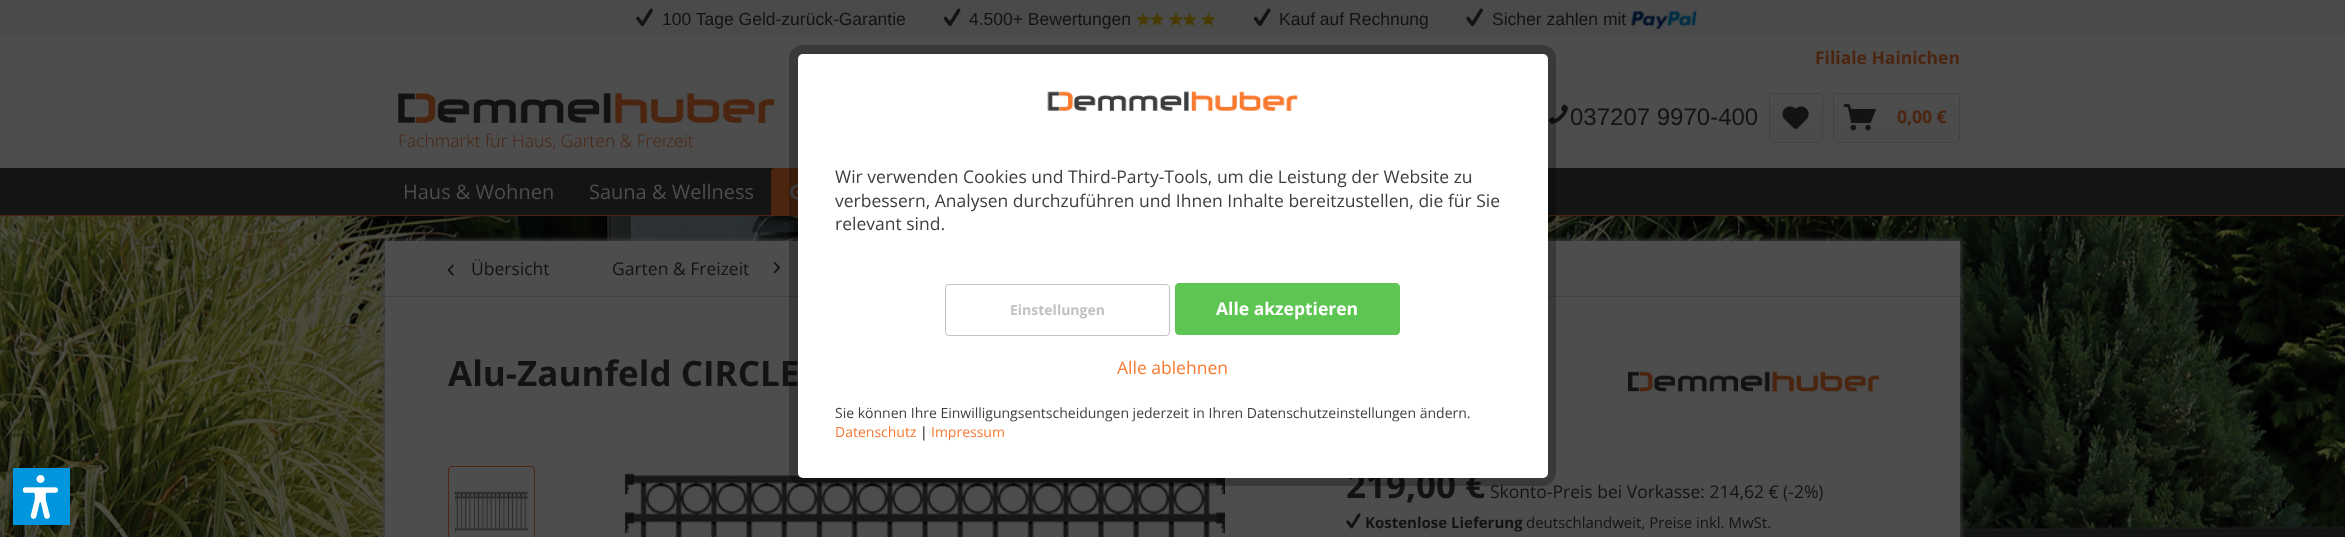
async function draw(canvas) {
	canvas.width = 2345;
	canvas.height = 537;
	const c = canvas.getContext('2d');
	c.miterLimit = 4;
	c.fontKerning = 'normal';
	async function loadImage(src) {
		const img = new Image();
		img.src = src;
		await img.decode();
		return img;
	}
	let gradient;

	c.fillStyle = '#fff';
	c.fillRect(0, 0, 2345, 537);
	c.drawImage(await loadImage('img2.png'), 0, 216, 2345, 321);
	c.fillStyle = '#0096de';
	c.fillRect(13, 468, 57, 57);
	c.drawImage(await loadImage('img1.png'), 23, 475, 35, 44);
	c.fillStyle = '#4a4a4a';
	c.fillRect(0, 0, 2345, 36);
	c.drawImage(await loadImage('img3.png'), 636, 8, 17, 19);
	c.font = '17.5px Liberation Sans';
	c.fillStyle = '#121313';
	c.fillText('100 Tage Geld-zurück-Garantie', 662, 25);
	c.drawImage(await loadImage('img4.png'), 943, 8, 18, 18);
	c.fillText('4.500+ Bewertungen', 969, 25);
	c.drawImage(await loadImage('img5.png'), 1136, 12, 15, 14);
	c.drawImage(await loadImage('img6.png'), 1150, 12, 14, 14);
	c.drawImage(await loadImage('img7.png'), 1168, 12, 15, 14);
	c.drawImage(await loadImage('img8.png'), 1182, 12, 15, 14);
	c.drawImage(await loadImage('img5.png'), 1201, 12, 15, 14);
	c.drawImage(await loadImage('img4.png'), 1253, 8, 18, 18);
	c.fillText('Kauf auf Rechnung', 1279, 25);
	c.drawImage(await loadImage('img3.png'), 1466, 8, 17, 19);
	c.fillText('Sicher zahlen mit', 1492, 25);
	c.drawImage(await loadImage('img9.png'), 1631, 11, 66, 18);
	c.fillStyle = '#4d4d4d';
	c.fillRect(0, 36, 2345, 132);
	c.font = 'bold 17.5px Open Sans';
	c.fillStyle = '#4b250f';
	c.fillText('Filiale Hainichen', 1815, 64);
	c.drawImage(await loadImage('img10.png'), 1548, 104, 20, 20);
	c.font = '24px Liberation Sans';
	c.fillStyle = '#121313';
	c.fillText('037207 9970-400', 1570, 125);
	gradient = c.createLinearGradient(1796, 94, 1796, 141);
	gradient.addColorStop(0, '#4d4d4d');
	gradient.addColorStop(1, '#4a4a4b');
	c.fillStyle = gradient;
	c.beginPath();
	c.roundRect(1770, 94, 51, 47, 2.5);
	c.fill();
	c.beginPath();
	c.roundRect(1769.5, 93.5, 53, 49, 3.5);
	c.strokeStyle = '#414145';
	c.stroke();
	c.drawImage(await loadImage('img11.png'), 1782, 106, 27, 23);
	gradient = c.createLinearGradient(1896, 94, 1896, 141);
	gradient.addColorStop(0, '#4d4d4d');
	gradient.addColorStop(1, '#4a4a4b');
	c.fillStyle = gradient;
	c.beginPath();
	c.roundRect(1834, 94, 125, 47, 2.5);
	c.fill();
	c.beginPath();
	c.roundRect(1833.5, 93.5, 126, 49, 3.5);
	c.stroke();
	c.drawImage(await loadImage('img12.png'), 1843, 104, 34, 27);
	c.font = 'bold 17.5px Open Sans';
	c.fillStyle = '#4b250f';
	c.fillText('0,00 €', 1897, 123);
	c.drawImage(await loadImage('img13.png'), 398, 93, 377, 30);
	c.font = '300 17.5px Open Sans';
	c.fillText('Fachmarkt für Haus, Garten & Freizeit', 398, 147);
	c.fillStyle = '#141414';
	c.fillRect(0, 168, 2345, 47);
	c.fillStyle = '#4b250f';
	c.fillRect(0, 215, 2345, 1);
	c.font = '20px Open Sans';
	c.fillStyle = '#4d4d4d';
	c.fillText('Haus & Wohnen', 403, 199);
	c.fillText('Sauna & Wellness', 589, 199);
	c.fillStyle = '#4b250f';
	c.beginPath();
	c.roundRect(771, 168, 204, 47, [4, 4, 0, 0]);
	c.fill();
	c.font = 'bold 20px Open Sans';
	c.fillStyle = '#4d4d4d';
	c.fillText('G', 789, 199);
	c.fillStyle = '#414145';
	c.filter = 'blur(2.5px)';
	c.beginPath();
	c.rect(384, 240, 1577, 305);
	c.fill();
	c.filter = 'none';
	c.fillStyle = '#4d4d4d';
	c.fillRect(385, 241, 1575, 296);
	c.fillStyle = '#414145';
	c.fillRect(385, 296, 1575, 1);
	c.font = 'bold 35px Open Sans';
	c.fillStyle = '#121313';
	c.fillText('Alu-Zaunfeld CIRCLE', 448, 386);
	c.drawImage(await loadImage('img19.png'), 624, 466, 601, 71);
	c.fillText('219,00 €', 1346, 498);
	c.font = '17.5px Open Sans';
	c.fillText('Skonto-Preis bei Vorkasse: 214,62 € (-2%)', 1490, 498);
	c.beginPath();
	c.roundRect(793.5, 49.5, 758, 432, 9.5);
	c.strokeStyle = '#00000040';
	c.lineWidth = 9;
	c.stroke();
	c.fillStyle = '#fff';
	c.beginPath();
	c.roundRect(798, 54, 750, 424, 5);
	c.fill();
	c.drawImage(await loadImage('img14.png'), 1047, 91, 251, 20);
	c.fillStyle = '#3d3e3f';
	for (const [text, x, y] of [
		['Wir verwenden Cookies und Third-Party-Tools, um die Leistung der Website zu', 835, 183],
		['verbessern, Analysen durchzuführen und Ihnen Inhalte bereitzustellen, die für Sie', 835, 207],
		['relevant sind.', 835, 230],
	]) {
		c.fillText(text, x, y);
	}
	c.beginPath();
	c.roundRect(945.5, 284.5, 224, 51, 3.5);
	c.strokeStyle = '#c2c2c2';
	c.lineWidth = 1;
	c.stroke();
	c.font = 'bold 14px Open Sans';
	c.fillStyle = '#c2c2c2';
	c.fillText('Einstellungen', 1010, 315);
	c.fillStyle = '#5dc551';
	c.beginPath();
	c.roundRect(1175.5, 283.5, 224, 51, 3.5);
	c.fill();
	c.strokeStyle = '#5dc551';
	c.stroke();
	c.font = 'bold 17.5px Open Sans';
	c.fillStyle = '#fff';
	c.fillText('Alle akzeptieren', 1216, 315);
	c.font = '17.5px Open Sans';
	c.fillStyle = '#f97a31';
	c.fillText('Alle ablehnen', 1117, 374);
	c.font = '14px Open Sans';
	c.fillStyle = '#3d3e3f';
	c.fillText('Sie können Ihre Einwilligungsentscheidungen jederzeit in Ihren Datenschutzeinstellungen ändern.', 835, 418);
	c.fillStyle = '#f97a31';
	c.fillText('Datenschutz', 835, 437);
	c.fillStyle = '#000';
	c.fillText('|', 920, 437);
	c.fillStyle = '#f97a31';
	c.fillText('Impressum', 931, 437);
	c.drawImage(await loadImage('img15.png'), 447, 264, 7, 12);
	c.font = '17.5px Open Sans';
	c.fillStyle = '#121313';
	c.fillText('Übersicht', 471, 275);
	c.fillText('Garten & Freizeit', 612, 275);
	c.drawImage(await loadImage('img16.png'), 773, 262, 8, 12);
	c.drawImage(await loadImage('img17.png'), 1628, 371, 252, 21);
	c.beginPath();
	c.roundRect(448.5, 466.5, 86, 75, 3.5);
	c.strokeStyle = '#4b250f';
	c.stroke();
	c.drawImage(await loadImage('img18.png'), 455, 491, 73, 41);
	c.drawImage(await loadImage('img20.png'), 1346, 513, 15, 16);
	c.font = 'bold 15px Open Sans';
	c.fillText('Kostenlose Lieferung', 1365, 528);
	c.font = '15px Open Sans';
	c.fillText('deutschlandweit, Preise inkl. MwSt.', 1526, 528);
}

draw(document.querySelector('canvas'));
